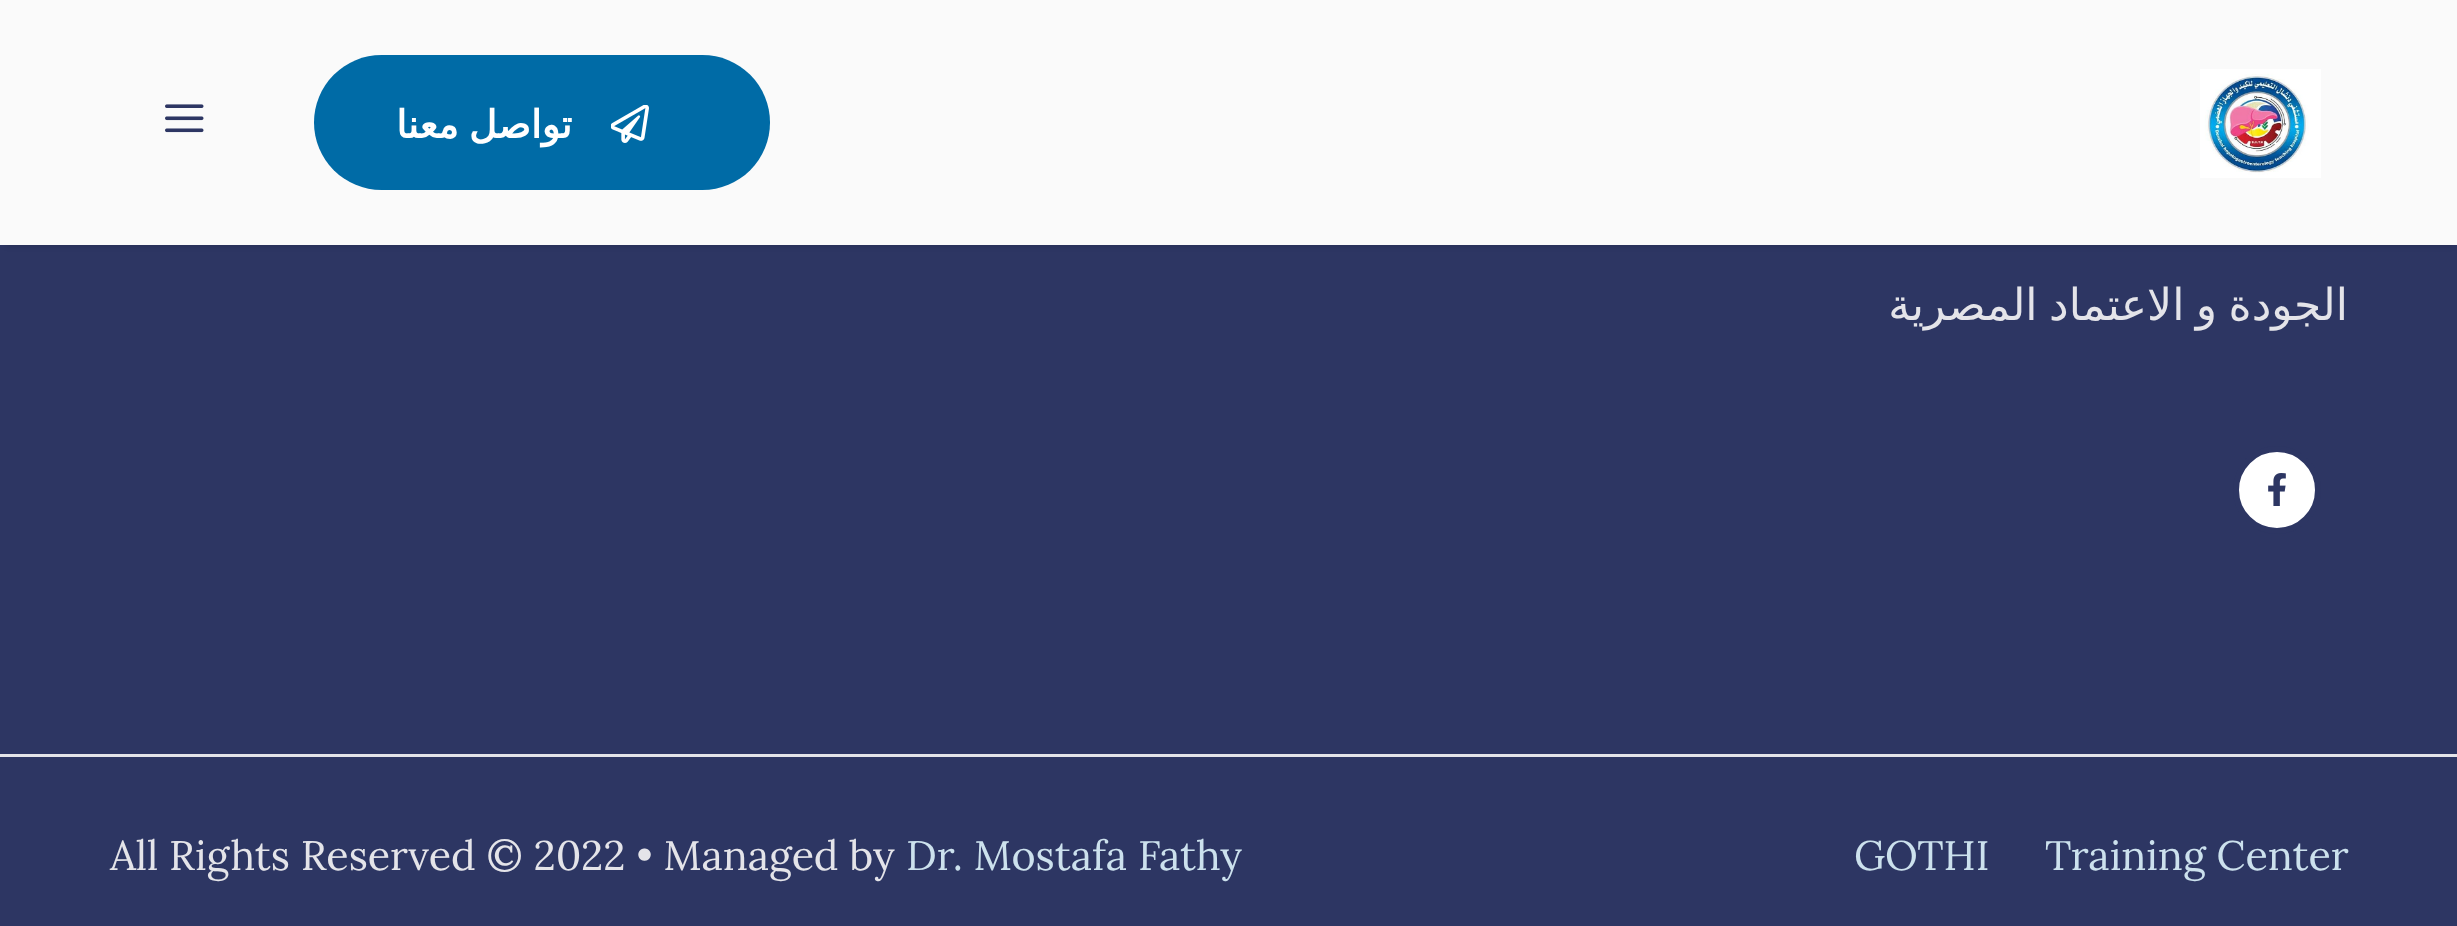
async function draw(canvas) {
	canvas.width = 2457;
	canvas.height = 926;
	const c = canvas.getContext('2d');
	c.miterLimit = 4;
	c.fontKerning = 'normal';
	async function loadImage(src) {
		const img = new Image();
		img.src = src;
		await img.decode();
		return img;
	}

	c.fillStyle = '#2d3663';
	c.fillRect(0, 0, 2457, 926);
	c.fillStyle = '#00000033';
	c.filter = 'blur(3px)';
	c.beginPath();
	c.rect(6, 11, 2447, 234);
	c.fill();
	c.filter = 'none';
	c.fillStyle = '#fafafa';
	c.fillRect(0, 0, 2457, 245);
	c.drawImage(await loadImage('img1.png'), 165, 104, 39, 29);
	c.fillStyle = '#006ba6';
	c.beginPath();
	c.roundRect(314, 55, 456, 135, 67.5);
	c.fill();
	c.wordSpacing = '-2px';
	c.direction = 'rtl';
	c.font = 'bold 38.5px DejaVu Sans';
	c.fillStyle = '#fff';
	c.fillText('تواصل معنا', 572, 138);
	c.drawImage(await loadImage('img2.png'), 611, 105, 38, 38);
	c.drawImage(await loadImage('img3.png'), 2200, 69, 121, 109);
	c.wordSpacing = '-2.5px';
	c.font = '44px DejaVu Sans';
	c.fillStyle = '#e4e4e9';
	c.fillText('الجودة و الاعتماد المصرية', 2348, 320);
	c.fillStyle = '#fff';
	c.beginPath();
	c.arc(2277, 490, 41, 0, 2 * Math.PI);
	c.fill();
	c.strokeStyle = '#2d3663';
	c.lineWidth = 6;
	c.stroke();
	c.drawImage(await loadImage('img4.png'), 2268, 473, 18, 33);
	c.fillStyle = '#e4e4e9';
	c.fillRect(0, 754, 2457, 3);
	c.wordSpacing = '0px';
	c.direction = 'ltr';
	c.font = '41.25px Lora';
	c.fillText('All Rights Reserved © 2022 • Managed by', 110, 870);
	c.fillStyle = '#cce1ed';
	for (const [text, x, y] of [
		['Dr. Mostafa Fathy', 906, 870],
		['GOTHI', 1854, 870],
		['Training Center', 2045, 870],
	]) {
		c.fillText(text, x, y);
	}
}

draw(document.querySelector('canvas'));
